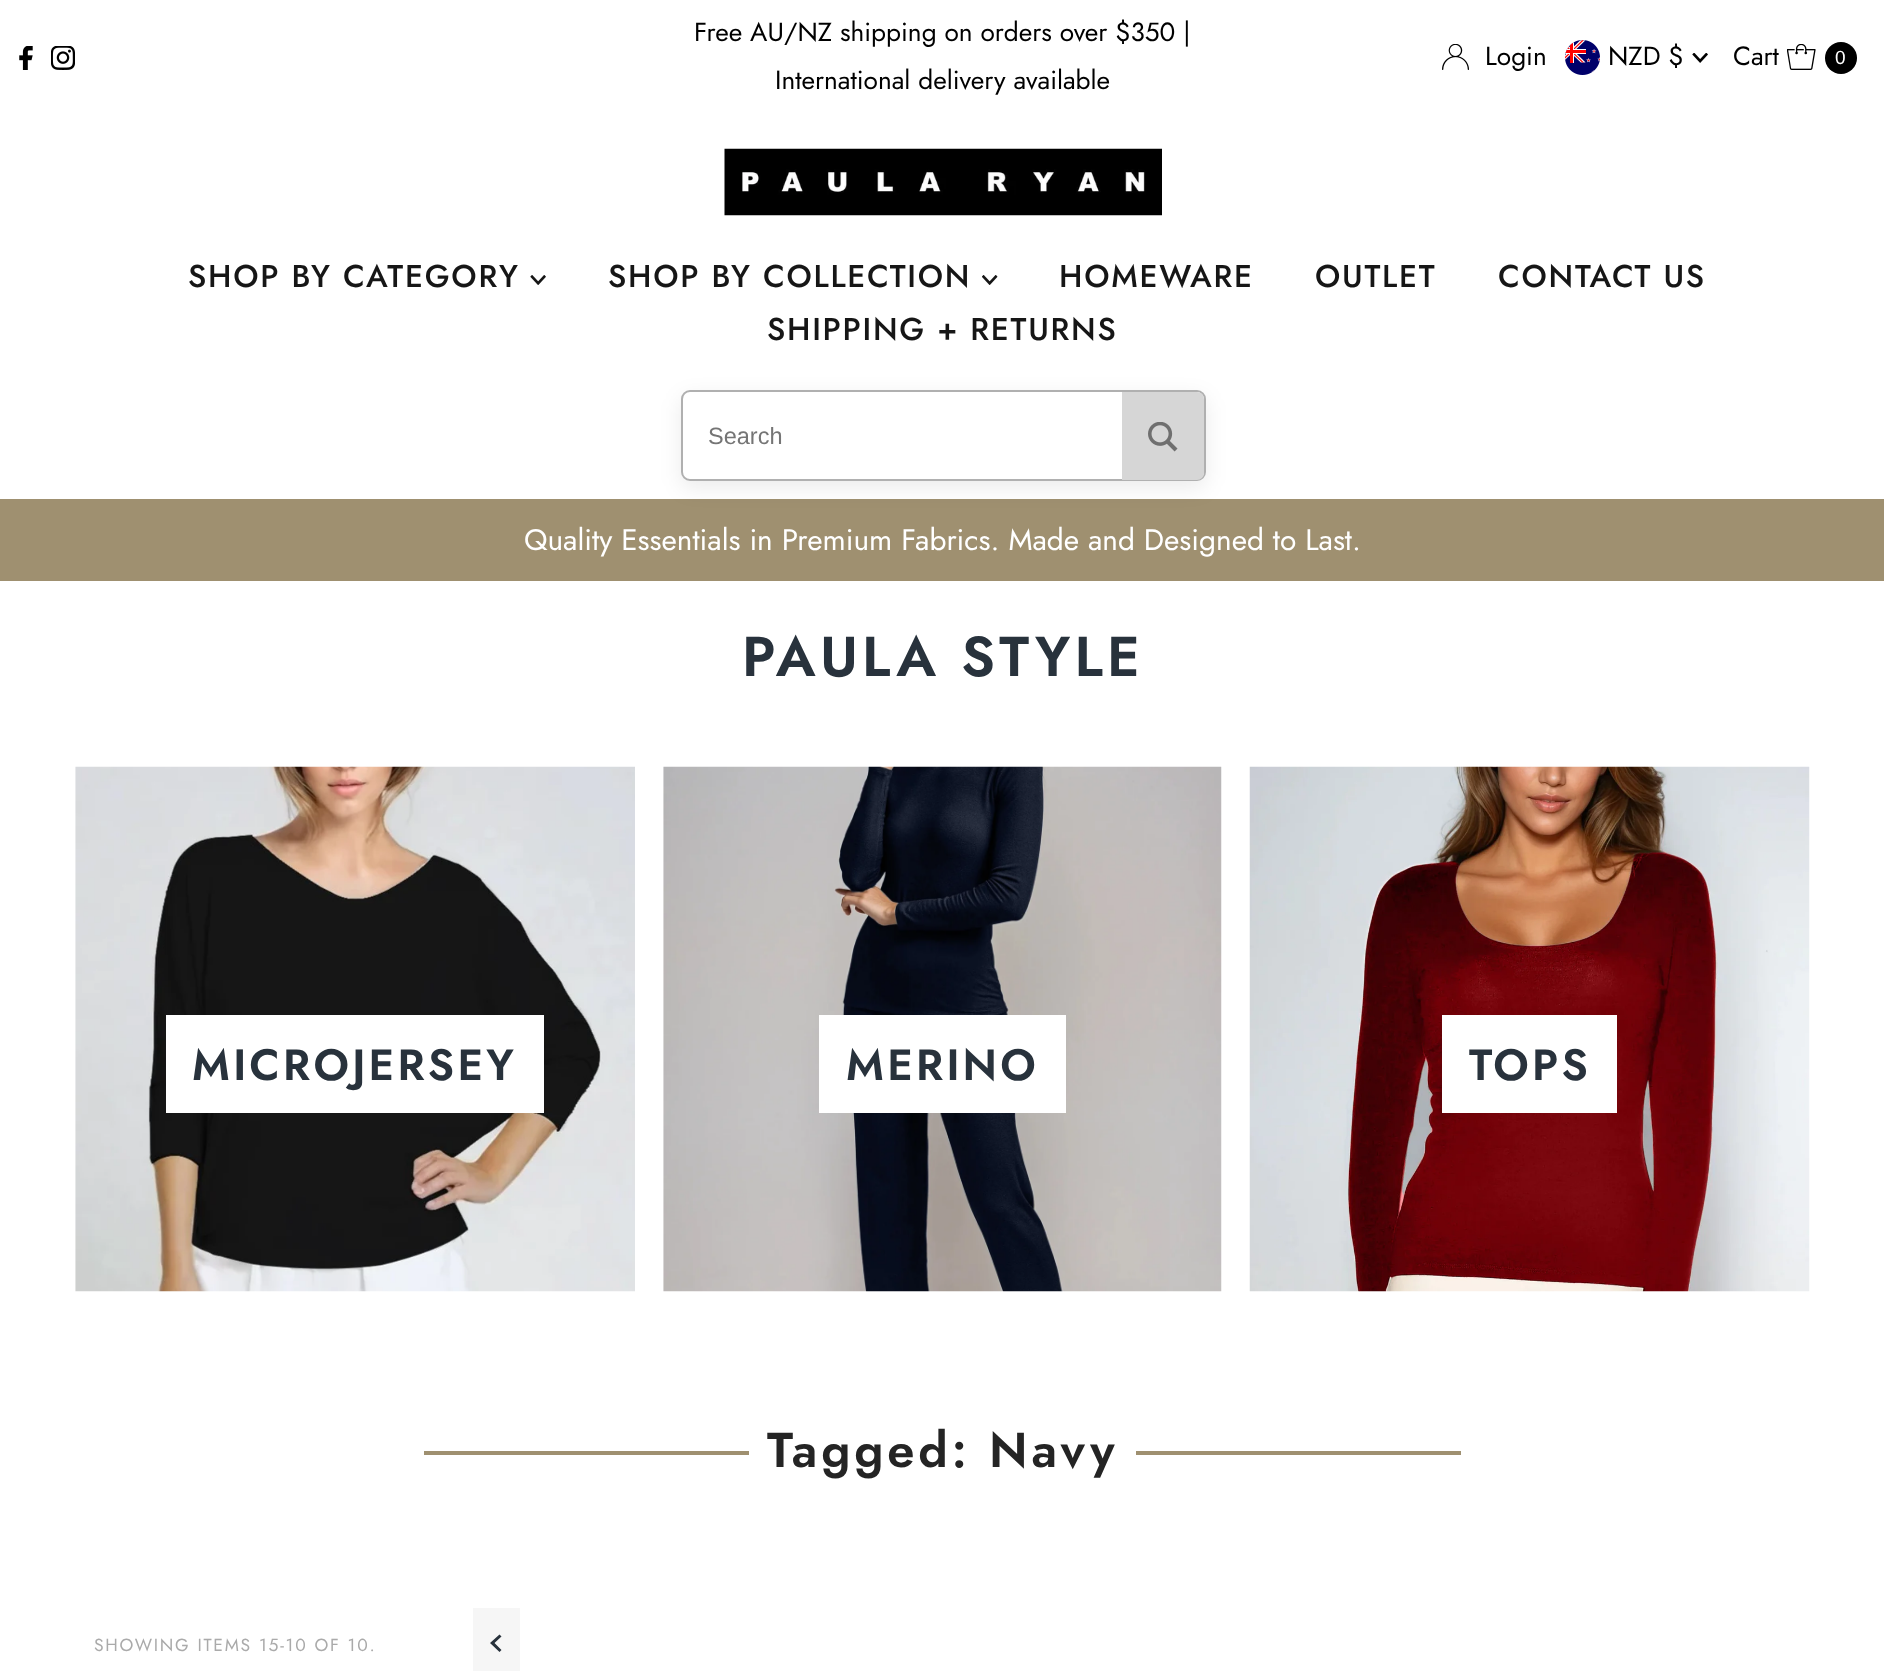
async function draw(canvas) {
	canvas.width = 1884;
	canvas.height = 1674;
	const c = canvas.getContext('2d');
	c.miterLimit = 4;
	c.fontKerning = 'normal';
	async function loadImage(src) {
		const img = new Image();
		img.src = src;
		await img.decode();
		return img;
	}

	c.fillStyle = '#fff';
	c.fillRect(0, 0, 1884, 1674);
	c.drawImage(await loadImage('img1.png'), 19, 46, 14, 24);
	c.drawImage(await loadImage('img2.png'), 51, 46, 24, 24);
	c.font = '26.25px Jost';
	c.fillStyle = '#000';
	c.fillText('Free AU/NZ shipping on orders over $350 |', 694, 41);
	c.fillText('International delivery available', 775, 89);
	c.drawImage(await loadImage('img3.png'), 1442, 44, 27, 26);
	c.fillText('Login', 1485, 65);
	c.drawImage(await loadImage('img4.png'), 1565, 40, 35, 35);
	c.fillText('NZD $', 1608, 65);
	c.drawImage(await loadImage('img5.png'), 1692, 53, 16, 10);
	c.fillText('Cart', 1733, 65);
	c.drawImage(await loadImage('img6.png'), 1787, 44, 29, 26);
	c.beginPath();
	c.arc(1841, 58, 16, 0, 2 * Math.PI);
	c.fill();
	c.font = '19px Liberation Sans';
	c.fillStyle = '#fff';
	c.fillText('0', 1835, 64);
	c.drawImage(await loadImage('img7.png'), 724, 148, 438, 68);
	c.letterSpacing = '1.75px';
	c.font = '500 31.5px Jost';
	c.fillStyle = '#161616';
	c.fillText('SHOP BY CATEGORY', 188, 287);
	c.drawImage(await loadImage('img8.png'), 530, 275, 16, 10);
	c.fillText('SHOP BY COLLECTION', 608, 287);
	c.drawImage(await loadImage('img9.png'), 982, 275, 16, 10);
	for (const [text, x, y] of [
		['HOMEWARE', 1059, 287],
		['OUTLET', 1315, 287],
		['CONTACT US', 1498, 287],
		['SHIPPING + RETURNS', 767, 340],
	]) {
		c.fillText(text, x, y);
	}
	c.fillStyle = '#9f9070';
	c.fillRect(0, 499, 1884, 82);
	c.fillStyle = '#00000014';
	c.filter = 'blur(10.5px)';
	c.beginPath();
	c.roundRect(681, 397, 525, 91, 9);
	c.fill();
	c.filter = 'none';
	c.fillStyle = '#fff';
	c.beginPath();
	c.roundRect(682, 391, 523, 89, 8);
	c.fill();
	c.strokeStyle = '#b0b0b0';
	c.lineWidth = 2;
	c.stroke();
	c.letterSpacing = '0px';
	c.font = '23.5px Liberation Sans';
	c.fillStyle = '#757575';
	c.fillText('Search', 708, 444);
	c.fillStyle = '#d6d6d6';
	c.beginPath();
	c.roundRect(1122, 392, 82, 88, [0, 7, 7, 0]);
	c.fill();
	c.drawImage(await loadImage('img10.png'), 1148, 422, 30, 30);
	c.font = '29.75px Jost';
	c.fillStyle = '#fff';
	c.fillText('Quality Essentials in Premium Fabrics. Made and Designed to Last.', 524, 550);
	c.letterSpacing = '4.25px';
	c.font = '600 56px Jost';
	c.fillStyle = '#28323c';
	c.fillText('PAULA STYLE', 742, 676);
	c.drawImage(await loadImage('img11.png'), 75, 766, 560, 526);
	c.fillStyle = '#fff';
	c.fillRect(166, 1015, 378, 98);
	c.letterSpacing = '3.25px';
	c.font = '600 43.75px Jost';
	c.fillStyle = '#28323c';
	c.fillText('MICROJERSEY', 192, 1080);
	c.drawImage(await loadImage('img12.png'), 663, 766, 559, 526);
	c.fillStyle = '#fff';
	c.fillRect(819, 1015, 247, 98);
	c.fillStyle = '#28323c';
	c.fillText('MERINO', 846, 1080);
	c.drawImage(await loadImage('img13.png'), 1249, 766, 561, 526);
	c.fillStyle = '#fff';
	c.fillRect(1442, 1015, 175, 98);
	c.fillStyle = '#28323c';
	c.fillText('TOPS', 1469, 1080);
	c.fillStyle = '#9f9070';
	c.fillRect(424, 1451, 1037, 4);
	c.fillStyle = '#fff';
	c.fillRect(749, 1451, 387, 4);
	c.letterSpacing = '3.75px';
	c.font = '600 49px Jost';
	c.fillStyle = '#242424';
	c.fillText('Tagged: Navy', 767, 1467);
	c.letterSpacing = '1.75px';
	c.font = '17.5px Jost';
	c.fillStyle = '#aaa';
	c.fillText('SHOWING ITEMS 15-10 OF 10.', 94, 1651);
	c.fillStyle = '#f6f6f6';
	c.fillRect(473, 1608, 47, 63);
	c.fillStyle = '#28323c';
	c.beginPath();
	c.moveTo(501.5, 1636.5);
	c.lineTo(499.5, 1634.5);
	c.lineTo(490, 1643);
	c.lineTo(499.5, 1652);
	c.lineTo(501.5, 1650);
	c.lineTo(494.5, 1643);
	c.closePath();
	c.fill();
}

draw(document.querySelector('canvas'));
